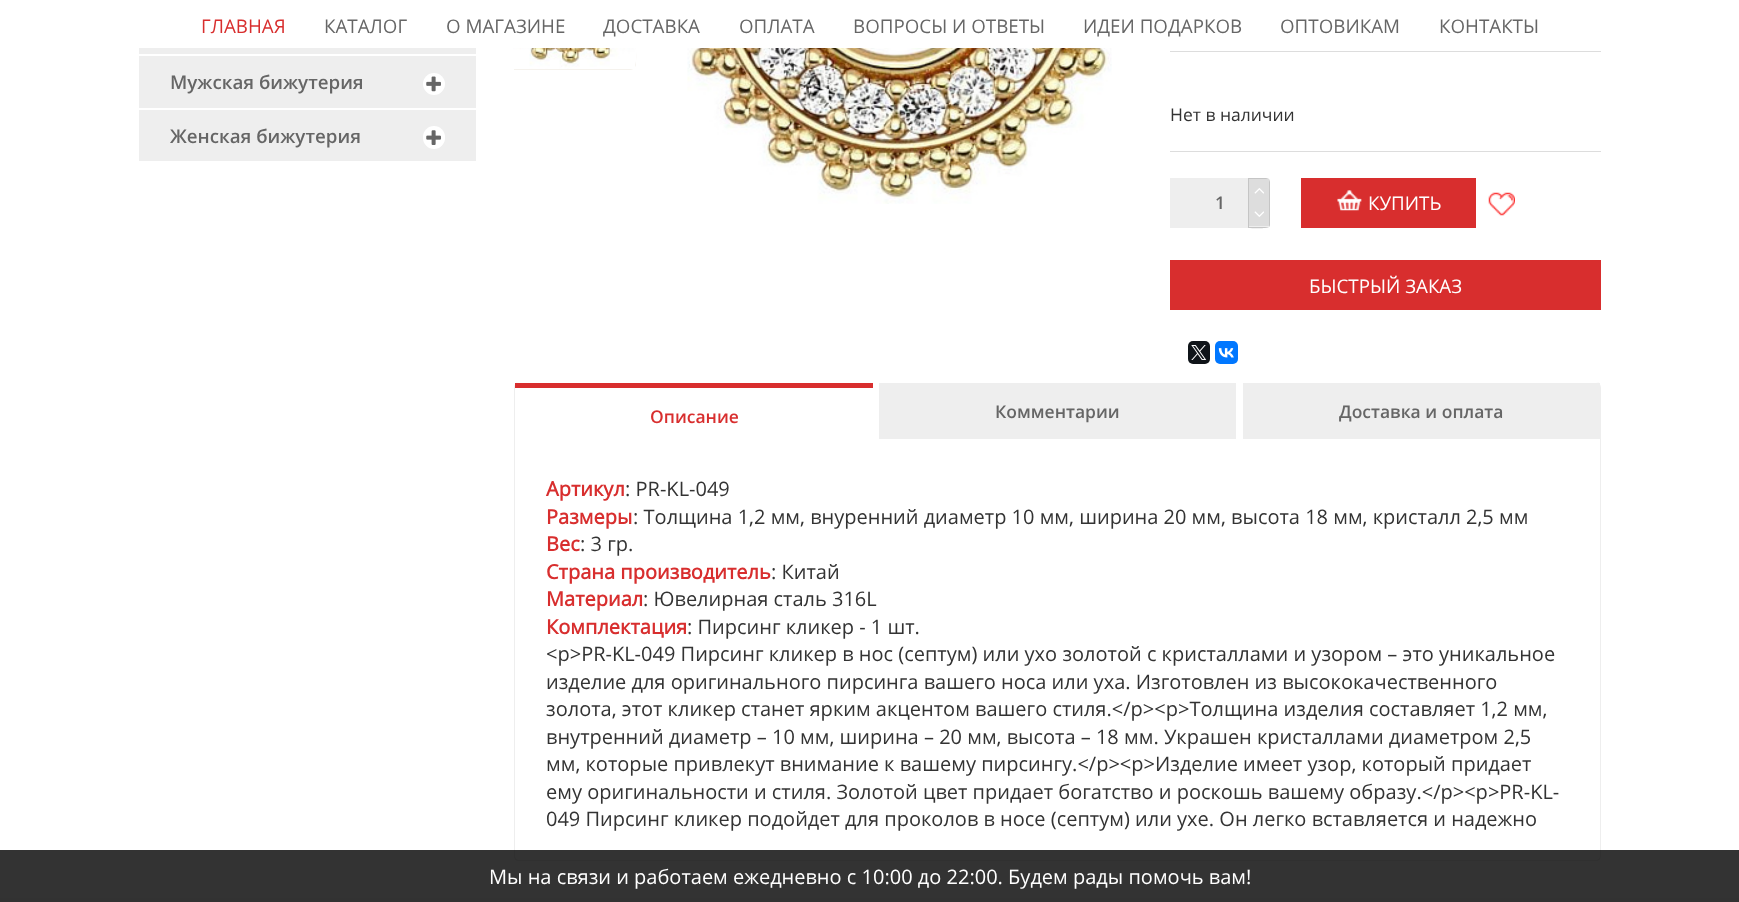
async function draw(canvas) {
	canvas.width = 1739;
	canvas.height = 902;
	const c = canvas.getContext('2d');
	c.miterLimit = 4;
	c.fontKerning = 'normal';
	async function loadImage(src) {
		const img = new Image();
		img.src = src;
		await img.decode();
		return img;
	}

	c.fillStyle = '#fff';
	c.fillRect(0, 0, 1739, 902);
	c.fillStyle = '#f5f2ed';
	c.beginPath();
	c.moveTo(515, -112);
	c.lineTo(514, -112);
	c.lineTo(514, -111);
	c.lineTo(630, -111);
	c.bezierCurveTo(640, -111, 635, -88, 635, -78);
	c.lineTo(635, 36);
	c.bezierCurveTo(635, 46, 640, 69, 630, 69);
	c.lineTo(514, 69);
	c.lineTo(514, 70);
	c.lineTo(515, 70);
	c.lineTo(630, 70);
	c.bezierCurveTo(633, 70, 636, 67, 636, 64);
	c.lineTo(636, -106);
	c.bezierCurveTo(636, -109, 633, -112, 630, -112);
	c.closePath();
	c.fill();
	c.fillStyle = '#fff';
	c.fillRect(635, 0, 1, 48);
	c.font = '18.75px Open Sans';
	c.fillStyle = '#d82e2e';
	c.fillText('ГЛАВНАЯ', 201, 33);
	c.fillStyle = '#666';
	for (const [text, x, y] of [
		['КАТАЛОГ', 324, 33],
		['О МАГАЗИНЕ', 446, 33],
		['ДОСТАВКА', 603, 33],
		['ОПЛАТА', 739, 33],
		['ВОПРОСЫ И ОТВЕТЫ', 853, 33],
		['ИДЕИ ПОДАРКОВ', 1083, 33],
		['ОПТОВИКАМ', 1280, 33],
		['КОНТАКТЫ', 1439, 33],
	]) {
		c.fillText(text, x, y);
	}
	c.fillStyle = '#eee';
	c.fillRect(139, 48, 337, 6);
	c.fillRect(139, 56, 337, 52);
	c.font = '600 18.75px Open Sans';
	c.fillStyle = '#666';
	c.fillText('Мужская бижутерия', 170, 89);
	c.fillStyle = '#fff';
	c.beginPath();
	c.arc(434, 84, 11, 0, 2 * Math.PI);
	c.fill();
	c.drawImage(await loadImage('img1.png'), 426, 76, 15, 16);
	c.fillStyle = '#eee';
	c.fillRect(139, 110, 337, 51);
	c.fillStyle = '#666';
	c.fillText('Женская бижутерия', 170, 143);
	c.fillStyle = '#fff';
	c.beginPath();
	c.roundRect(423, 126, 22, 23, 11);
	c.fill();
	c.drawImage(await loadImage('img2.png'), 426, 130, 15, 15);
	c.drawImage(await loadImage('img3.png'), 513, 48, 122, 21);
	c.drawImage(await loadImage('img4.png'), 687, 48, 425, 156);
	c.fillStyle = '#ddd';
	c.fillRect(1170, 51, 431, 1);
	c.fillRect(1170, 151, 431, 1);
	c.font = '17.5px Open Sans';
	c.fillStyle = '#333';
	c.fillText('Нет в наличии', 1170, 121);
	c.fillStyle = '#eee';
	c.beginPath();
	c.roundRect(1170, 178, 100, 50, [0, 4, 4, 0]);
	c.fill();
	c.font = '600 17.5px Open Sans';
	c.fillStyle = '#666';
	c.fillText('1', 1215, 209);
	c.fillStyle = '#c5c5c5';
	c.beginPath();
	c.moveTo(1248, 178);
	c.lineTo(1248, 228);
	c.bezierCurveTo(1252, 228, 1266, 229, 1269, 227);
	c.lineTo(1249, 227);
	c.lineTo(1249, 179);
	c.lineTo(1269, 179);
	c.lineTo(1266, 178);
	c.closePath();
	c.moveTo(1270, 182);
	c.lineTo(1269, 179);
	c.lineTo(1269, 227);
	c.bezierCurveTo(1270, 226, 1270, 225, 1270, 224);
	c.closePath();
	c.fill('evenodd');
	c.fillStyle = '#ddd';
	c.fillRect(1249, 179, 20, 47);
	c.drawImage(await loadImage('img5.png'), 1254, 188, 10, 6);
	c.drawImage(await loadImage('img6.png'), 1254, 211, 10, 6);
	c.fillStyle = '#d82e2e';
	c.fillRect(1301, 178, 175, 50);
	c.drawImage(await loadImage('img7.png'), 1337, 190, 25, 21);
	c.font = '18.75px Open Sans';
	c.fillStyle = '#fff';
	c.fillText('КУПИТЬ', 1368, 210);
	c.drawImage(await loadImage('img8.png'), 1488, 192, 27, 24);
	c.fillStyle = '#d82e2e';
	c.fillRect(1170, 260, 431, 50);
	c.fillStyle = '#fff';
	c.fillText('БЫСТРЫЙ ЗАКАЗ', 1309, 293);
	c.fillStyle = '#0f1419';
	c.beginPath();
	c.roundRect(1188, 341, 22, 23, 5);
	c.fill();
	c.drawImage(await loadImage('img9.png'), 1191, 345, 16, 15);
	c.fillStyle = '#07f';
	c.beginPath();
	c.roundRect(1215, 341, 23, 23, 5);
	c.fill();
	c.drawImage(await loadImage('img10.png'), 1218, 348, 16, 10);
	c.fillStyle = '#eee';
	c.beginPath();
	c.moveTo(519, 382);
	c.lineTo(1596, 382);
	c.bezierCurveTo(1599, 382, 1601, 385, 1601, 388);
	c.lineTo(1601, 856);
	c.bezierCurveTo(1601, 859, 1599, 861, 1596, 861);
	c.lineTo(519, 861);
	c.bezierCurveTo(516, 861, 514, 859, 514, 856);
	c.lineTo(514, 388);
	c.bezierCurveTo(514, 385, 516, 382, 519, 382);
	c.closePath();
	c.moveTo(519, 382);
	c.lineTo(1596, 382);
	c.bezierCurveTo(1598, 382, 1600, 385, 1600, 388);
	c.lineTo(1600, 856);
	c.bezierCurveTo(1600, 858, 1598, 860, 1596, 860);
	c.lineTo(519, 860);
	c.bezierCurveTo(517, 860, 515, 858, 515, 856);
	c.lineTo(515, 388);
	c.bezierCurveTo(515, 385, 517, 382, 519, 382);
	c.closePath();
	c.fill('evenodd');
	c.fillStyle = '#d82e2e';
	c.fillRect(515, 383, 358, 5);
	c.font = '600 17.5px Open Sans';
	c.fillText('Описание', 650, 423);
	c.fillStyle = '#eee';
	c.fillRect(879, 383, 357, 56);
	c.fillStyle = '#666';
	c.fillText('Комментарии', 995, 418);
	c.fillStyle = '#eee';
	c.fillRect(1243, 383, 357, 56);
	c.fillStyle = '#666';
	c.fillText('Доставка и оплата', 1339, 418);
	c.font = 'bold 20px Open Sans';
	c.fillStyle = '#d82e2e';
	c.fillText('Артикул', 546, 496);
	c.font = '20px Open Sans';
	c.fillStyle = '#333';
	c.fillText(': PR-KL-049', 625, 496);
	c.font = 'bold 20px Open Sans';
	c.fillStyle = '#d82e2e';
	c.fillText('Размеры', 546, 524);
	c.font = '20px Open Sans';
	c.fillStyle = '#333';
	c.fillText(': Толщина 1,2 мм, внуренний диаметр 10 мм, ширина 20 мм, высота 18 мм, кристалл 2,5 мм', 633, 524);
	c.font = 'bold 20px Open Sans';
	c.fillStyle = '#d82e2e';
	c.fillText('Вес', 546, 551);
	c.font = '20px Open Sans';
	c.fillStyle = '#333';
	c.fillText(': 3 гр.', 580, 551);
	c.font = 'bold 20px Open Sans';
	c.fillStyle = '#d82e2e';
	c.fillText('Страна производитель', 546, 579);
	c.font = '20px Open Sans';
	c.fillStyle = '#333';
	c.fillText(': Китай', 771, 579);
	c.font = 'bold 20px Open Sans';
	c.fillStyle = '#d82e2e';
	c.fillText('Материал', 546, 606);
	c.font = '20px Open Sans';
	c.fillStyle = '#333';
	c.fillText(': Ювелирная сталь 316L', 643, 606);
	c.font = 'bold 20px Open Sans';
	c.fillStyle = '#d82e2e';
	c.fillText('Комплектация', 546, 634);
	c.font = '20px Open Sans';
	c.fillStyle = '#333';
	for (const [text, x, y] of [
		[': Пирсинг кликер - 1 шт.', 687, 634],
		['<p>PR-KL-049 Пирсинг кликер в нос (септум) или ухо золотой с кристаллами и узором – это уникальное', 546, 661],
		['изделие для оригинального пирсинга вашего носа или уха. Изготовлен из высококачественного', 546, 689],
		['золота, этот кликер станет ярким акцентом вашего стиля.<\/p><p>Толщина изделия составляет 1,2 мм,', 546, 716],
		['внутренний диаметр – 10 мм, ширина – 20 мм, высота – 18 мм. Украшен кристаллами диаметром 2,5', 546, 744],
		['мм, которые привлекут внимание к вашему пирсингу.<\/p><p>Изделие имеет узор, который придает', 546, 771],
		['ему оригинальности и стиля. Золотой цвет придает богатство и роскошь вашему образу.<\/p><p>PR-KL-', 546, 799],
		['049 Пирсинг кликер подойдет для проколов в носе (септум) или ухе. Он легко вставляется и надежно', 546, 826],
	]) {
		c.fillText(text, x, y);
	}
	c.fillStyle = '#f9f9f9';
	c.fillRect(0, 898, 1739, 4);
	c.fillStyle = '#000000cc';
	c.fillRect(0, 850, 1739, 52);
	c.fillStyle = '#fff';
	c.fillText('Мы на связи и работаем ежедневно с 10:00 до 22:00. Будем рады помочь вам!', 489, 884);
}

draw(document.querySelector('canvas'));
